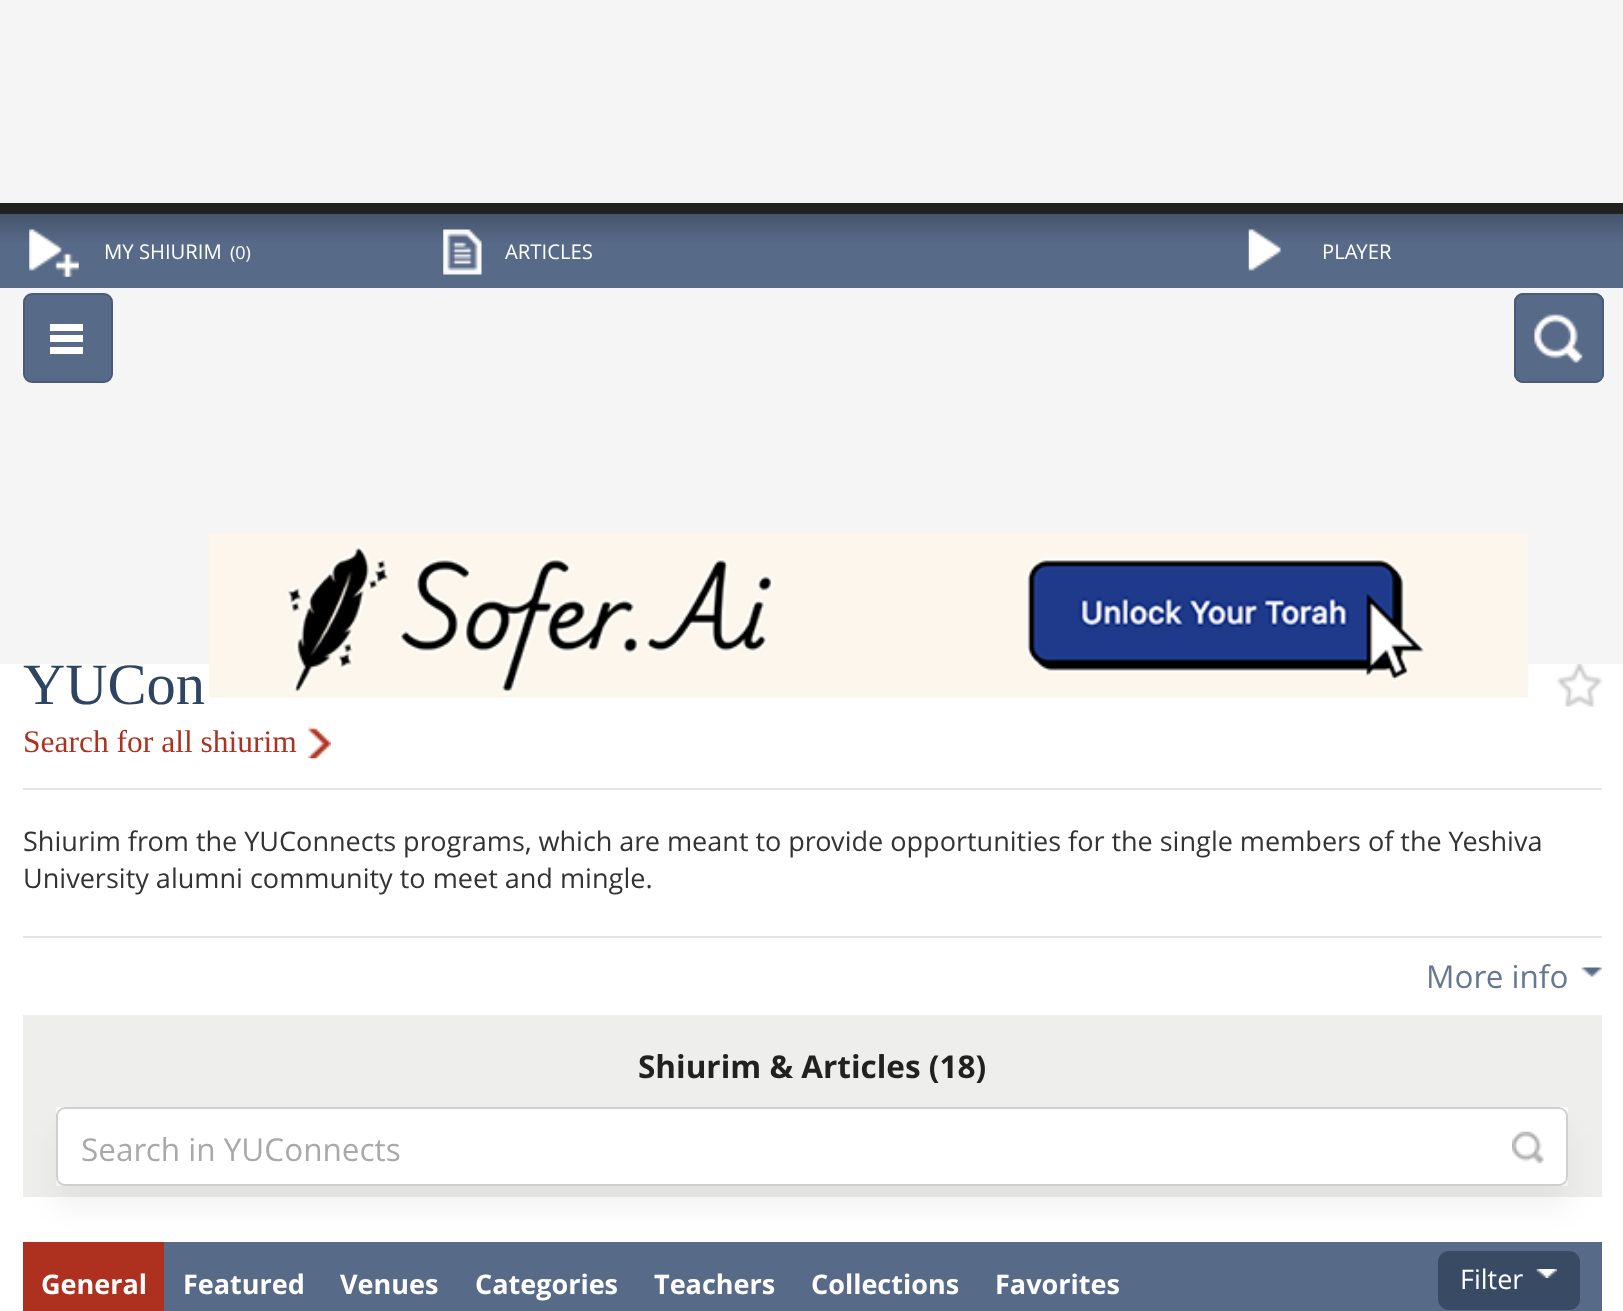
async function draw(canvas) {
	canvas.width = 1623;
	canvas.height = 1311;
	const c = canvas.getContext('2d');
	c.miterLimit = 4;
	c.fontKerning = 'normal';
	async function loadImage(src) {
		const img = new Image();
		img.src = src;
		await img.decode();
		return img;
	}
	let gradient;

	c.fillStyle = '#f5f5f5';
	c.fillRect(0, 0, 1623, 1311);
	gradient = c.createLinearGradient(812, 214, 812, 288);
	gradient.addColorStop(0, '#485770');
	gradient.addColorStop(0.02, '#47566f');
	gradient.addColorStop(0.4, '#576a87');
	gradient.addColorStop(1, '#576a88');
	c.fillStyle = gradient;
	c.fillRect(0, 214, 1623, 74);
	c.drawImage(await loadImage('img1.png'), 29, 229, 50, 48);
	c.font = '20.25px Open Sans';
	c.fillStyle = '#fff';
	c.fillText('MY SHIURIM', 104, 259);
	c.font = '18px Open Sans';
	c.fillText('(0)', 230, 259);
	c.drawImage(await loadImage('img2.png'), 443, 229, 39, 46);
	c.font = '20.25px Open Sans';
	c.fillText('ARTICLES', 505, 259);
	c.drawImage(await loadImage('img3.png'), 1248, 229, 33, 42);
	c.fillText('PLAYER', 1322, 259);
	c.fillStyle = '#21211f';
	c.fillRect(0, 203, 1623, 11);
	c.fillStyle = '#576a88';
	c.beginPath();
	c.roundRect(24, 294, 88, 88, 8);
	c.fill();
	c.strokeStyle = '#495b79';
	c.lineWidth = 2;
	c.stroke();
	for (const [x, y, w, h, color] of [
		[50, 324, 33, 7, '#fff'],
		[50, 347, 33, 7, '#fff'],
		[50, 335, 33, 7, '#fff'],
	]) {
		c.fillStyle = color;
		c.fillRect(x, y, w, h);
	}
	c.fillStyle = '#576a88';
	c.beginPath();
	c.roundRect(1514, 293, 90, 90, 9);
	c.fill();
	c.drawImage(await loadImage('img4.png'), 1534, 313, 49, 50);
	c.beginPath();
	c.roundRect(1515, 294, 88, 88, 8);
	c.stroke();
	c.fillStyle = '#fff';
	c.fillRect(0, 664, 1623, 647);
	c.drawImage(await loadImage('img5.png'), 209, 533, 1319, 165);
	c.fillStyle = '#e5e5e5';
	c.fillRect(23, 788, 1579, 2);
	c.font = '58.5px Liberation Serif';
	c.fillStyle = '#2d4563';
	c.fillText('YUCon', 23, 704);
	c.drawImage(await loadImage('img6.png'), 1557, 664, 45, 43);
	c.font = '31.5px Liberation Serif';
	c.fillStyle = '#ae3120';
	c.fillText('Search for all shiurim', 23, 752);
	c.drawImage(await loadImage('img7.png'), 308, 726, 23, 33);
	c.wordSpacing = '-0.1px';
	c.font = '27.05px Open Sans';
	c.fillStyle = '#333';
	c.fillText('Shiurim from the YUConnects programs, which are meant to provide opportunities for the single members of the Yeshiva', 23, 851);
	c.wordSpacing = '0px';
	c.fillText('University alumni community to meet and mingle.', 23, 888);
	c.fillStyle = '#e5e5e5';
	c.fillRect(23, 936, 1579, 2);
	c.font = '31.5px Open Sans';
	c.fillStyle = '#677892';
	c.fillText('More info', 1426, 988);
	c.drawImage(await loadImage('img8.png'), 1581, 967, 21, 10);
	c.fillStyle = '#eeeeed';
	c.fillRect(23, 1015, 1579, 182);
	c.font = 'bold 31.5px Open Sans';
	c.fillStyle = '#21211f';
	c.fillText('Shiurim & Articles (18)', 638, 1078);
	c.fillStyle = '#0000000d';
	c.filter = 'blur(14.5px)';
	c.beginPath();
	c.rect(56, 1130, 1512, 78);
	c.fill();
	c.filter = 'none';
	gradient = c.createLinearGradient(812, 1107, 812, 1186);
	gradient.addColorStop(0, '#fff');
	gradient.addColorStop(1, '#f2f2f2');
	c.fillStyle = gradient;
	c.fillRect(56, 1107, 1512, 79);
	c.fillStyle = '#fff';
	c.beginPath();
	c.roundRect(57, 1108, 1510, 77, 8);
	c.fill();
	c.strokeStyle = '#cfcfcf';
	c.stroke();
	c.font = '31.5px Open Sans';
	c.fillStyle = '#a9a9a9';
	c.fillText('Search in YUConnects', 81, 1161);
	c.drawImage(await loadImage('img9.png'), 1512, 1131, 32, 33);
	c.fillStyle = '#576a88';
	c.fillRect(164, 1242, 1438, 69);
	c.fillStyle = '#ae3120';
	c.fillRect(23, 1242, 141, 69);
	c.font = 'bold 27px Open Sans';
	c.fillStyle = '#fff';
	for (const [text, x, y] of [
		['General', 41, 1294],
		['Featured', 183, 1294],
		['Venues', 340, 1294],
		['Categories', 475, 1294],
		['Teachers', 654, 1294],
		['Collections', 811, 1294],
		['Favorites', 995, 1294],
	]) {
		c.fillText(text, x, y);
	}
	c.fillStyle = '#394a64';
	c.beginPath();
	c.roundRect(1438, 1251, 142, 59, 11);
	c.fill();
	c.font = '27px Open Sans';
	c.fillStyle = '#fff';
	c.fillText('Filter', 1460, 1289);
	c.drawImage(await loadImage('img10.png'), 1536, 1269, 21, 9);
}

draw(document.querySelector('canvas'));
